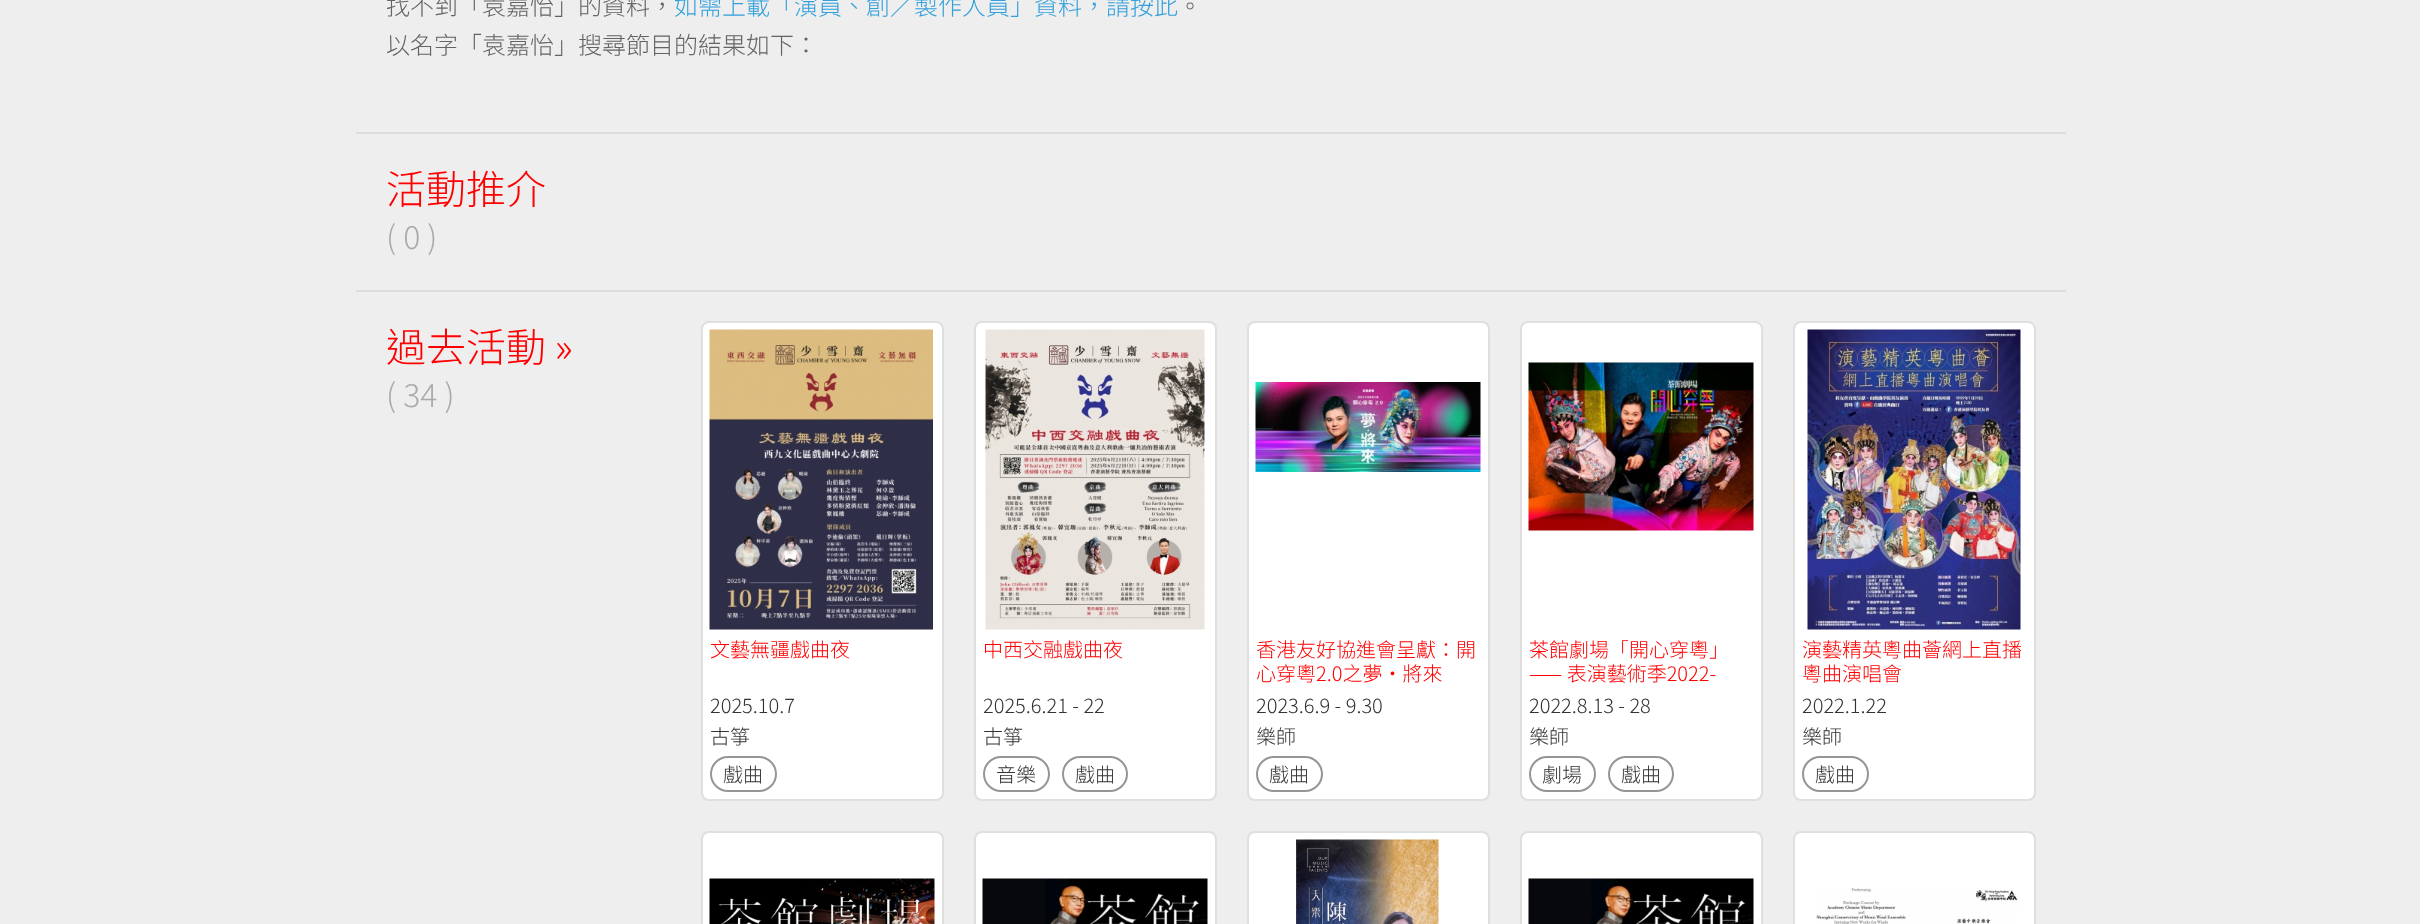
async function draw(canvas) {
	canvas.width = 2420;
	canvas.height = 924;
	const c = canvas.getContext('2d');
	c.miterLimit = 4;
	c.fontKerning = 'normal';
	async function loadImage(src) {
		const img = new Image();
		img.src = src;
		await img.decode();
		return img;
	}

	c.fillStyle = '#eee';
	c.fillRect(0, 0, 2420, 924);
	c.font = '100 24px Noto Sans HK';
	c.fillStyle = '#636363';
	c.fillText('找不到「袁嘉怡」的資料，', 386, 15);
	c.fillStyle = '#32a0dc';
	c.fillText('如需上載「演員、創／製作人員」資料，請按此', 674, 15);
	c.fillStyle = '#636363';
	c.fillText('。', 1178, 15);
	c.fillText('以名字「袁嘉怡」搜尋節目的結果如下：', 386, 54);
	c.fillStyle = '#ddd';
	c.fillRect(356, 132, 1710, 2);
	c.font = '100 40px Noto Sans HK';
	c.fillStyle = '#f00';
	c.fillText('活動推介', 386, 204);
	c.font = '100 32px Noto Sans HK';
	c.fillStyle = '#aaa';
	c.fillText('( 0 )', 386, 249);
	c.fillStyle = '#ddd';
	c.fillRect(356, 290, 1710, 2);
	c.font = '100 40px Noto Sans HK';
	c.fillStyle = '#f00';
	c.fillText('過去活動 »', 386, 362);
	c.font = '100 32px Noto Sans HK';
	c.fillStyle = '#aaa';
	c.fillText('( 34 )', 386, 407);
	c.fillStyle = '#fff';
	c.beginPath();
	c.roundRect(702, 322, 241, 478, 7);
	c.fill();
	c.strokeStyle = '#dfdfdf';
	c.lineWidth = 2;
	c.stroke();
	c.drawImage(await loadImage('img1.png'), 709, 329, 224, 301);
	c.font = '100 20px Noto Sans HK';
	c.fillStyle = '#f00';
	c.fillText('文藝無疆戲曲夜', 710, 657);
	c.fillStyle = '#333';
	c.fillText('2025.10.7', 710, 713);
	c.fillText('古箏', 710, 744);
	c.beginPath();
	c.roundRect(711, 757, 65, 34, 17);
	c.strokeStyle = '#959595';
	c.stroke();
	c.fillText('戲曲', 723, 782);
	c.fillStyle = '#fff';
	c.beginPath();
	c.roundRect(975, 322, 241, 478, 7);
	c.fill();
	c.strokeStyle = '#dfdfdf';
	c.stroke();
	c.drawImage(await loadImage('img2.png'), 985, 329, 220, 301);
	c.fillStyle = '#f00';
	c.fillText('中西交融戲曲夜', 983, 657);
	c.fillStyle = '#333';
	c.fillText('2025.6.21 - 22', 983, 713);
	c.fillText('古箏', 983, 744);
	c.beginPath();
	c.roundRect(984, 757, 65, 34, 17);
	c.strokeStyle = '#959595';
	c.stroke();
	c.fillText('音樂', 996, 782);
	c.beginPath();
	c.roundRect(1063, 757, 64, 34, 17);
	c.stroke();
	c.fillText('戲曲', 1075, 782);
	c.fillStyle = '#fff';
	c.beginPath();
	c.roundRect(1248, 322, 241, 478, 7);
	c.fill();
	c.strokeStyle = '#dfdfdf';
	c.stroke();
	c.drawImage(await loadImage('img3.png'), 1255, 382, 226, 90);
	c.fillStyle = '#f00';
	c.fillText('香港友好協進會呈獻：開', 1256, 657);
	c.fillText('心穿粵2.0之夢・將來', 1256, 681);
	c.fillStyle = '#333';
	c.fillText('2023.6.9 - 9.30', 1256, 713);
	c.fillText('樂師', 1256, 744);
	c.beginPath();
	c.roundRect(1257, 757, 65, 34, 17);
	c.strokeStyle = '#959595';
	c.stroke();
	c.fillText('戲曲', 1269, 782);
	c.fillStyle = '#fff';
	c.beginPath();
	c.roundRect(1521, 322, 241, 478, 7);
	c.fill();
	c.strokeStyle = '#dfdfdf';
	c.stroke();
	c.drawImage(await loadImage('img4.png'), 1528, 362, 226, 169);
	c.fillStyle = '#f00';
	c.fillText('茶館劇場「開心穿粵」', 1529, 657);
	c.fillText('—— 表演藝術季2022-', 1529, 681);
	c.fillStyle = '#333';
	c.fillText('2022.8.13 - 28', 1529, 713);
	c.fillText('樂師', 1529, 744);
	c.beginPath();
	c.roundRect(1530, 757, 65, 34, 17);
	c.strokeStyle = '#959595';
	c.stroke();
	c.fillText('劇場', 1542, 782);
	c.beginPath();
	c.roundRect(1609, 757, 64, 34, 17);
	c.stroke();
	c.fillText('戲曲', 1621, 782);
	c.fillStyle = '#fff';
	c.beginPath();
	c.roundRect(1794, 322, 241, 478, 7);
	c.fill();
	c.strokeStyle = '#dfdfdf';
	c.stroke();
	c.drawImage(await loadImage('img5.png'), 1807, 329, 214, 301);
	c.fillStyle = '#f00';
	c.fillText('演藝精英粵曲薈網上直播', 1802, 657);
	c.fillText('粵曲演唱會', 1802, 681);
	c.fillStyle = '#333';
	c.fillText('2022.1.22', 1802, 713);
	c.fillText('樂師', 1802, 744);
	c.beginPath();
	c.roundRect(1803, 757, 65, 34, 17);
	c.strokeStyle = '#959595';
	c.stroke();
	c.fillText('戲曲', 1815, 782);
	c.fillStyle = '#fff';
	c.beginPath();
	c.roundRect(702, 832, 241, 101, 7);
	c.fill();
	c.strokeStyle = '#dfdfdf';
	c.stroke();
	c.drawImage(await loadImage('img6.png'), 709, 878, 226, 46);
	c.beginPath();
	c.roundRect(975, 832, 241, 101, 7);
	c.fill();
	c.stroke();
	c.drawImage(await loadImage('img7.png'), 982, 878, 226, 46);
	c.beginPath();
	c.roundRect(1248, 832, 241, 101, 7);
	c.fill();
	c.stroke();
	c.drawImage(await loadImage('img8.png'), 1296, 839, 143, 85);
	c.beginPath();
	c.roundRect(1521, 832, 241, 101, 7);
	c.fill();
	c.stroke();
	c.drawImage(await loadImage('img7.png'), 1528, 878, 226, 46);
	c.beginPath();
	c.roundRect(1794, 832, 241, 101, 7);
	c.fill();
	c.stroke();
	c.drawImage(await loadImage('img9.png'), 1816, 888, 202, 36);
}

draw(document.querySelector('canvas'));
